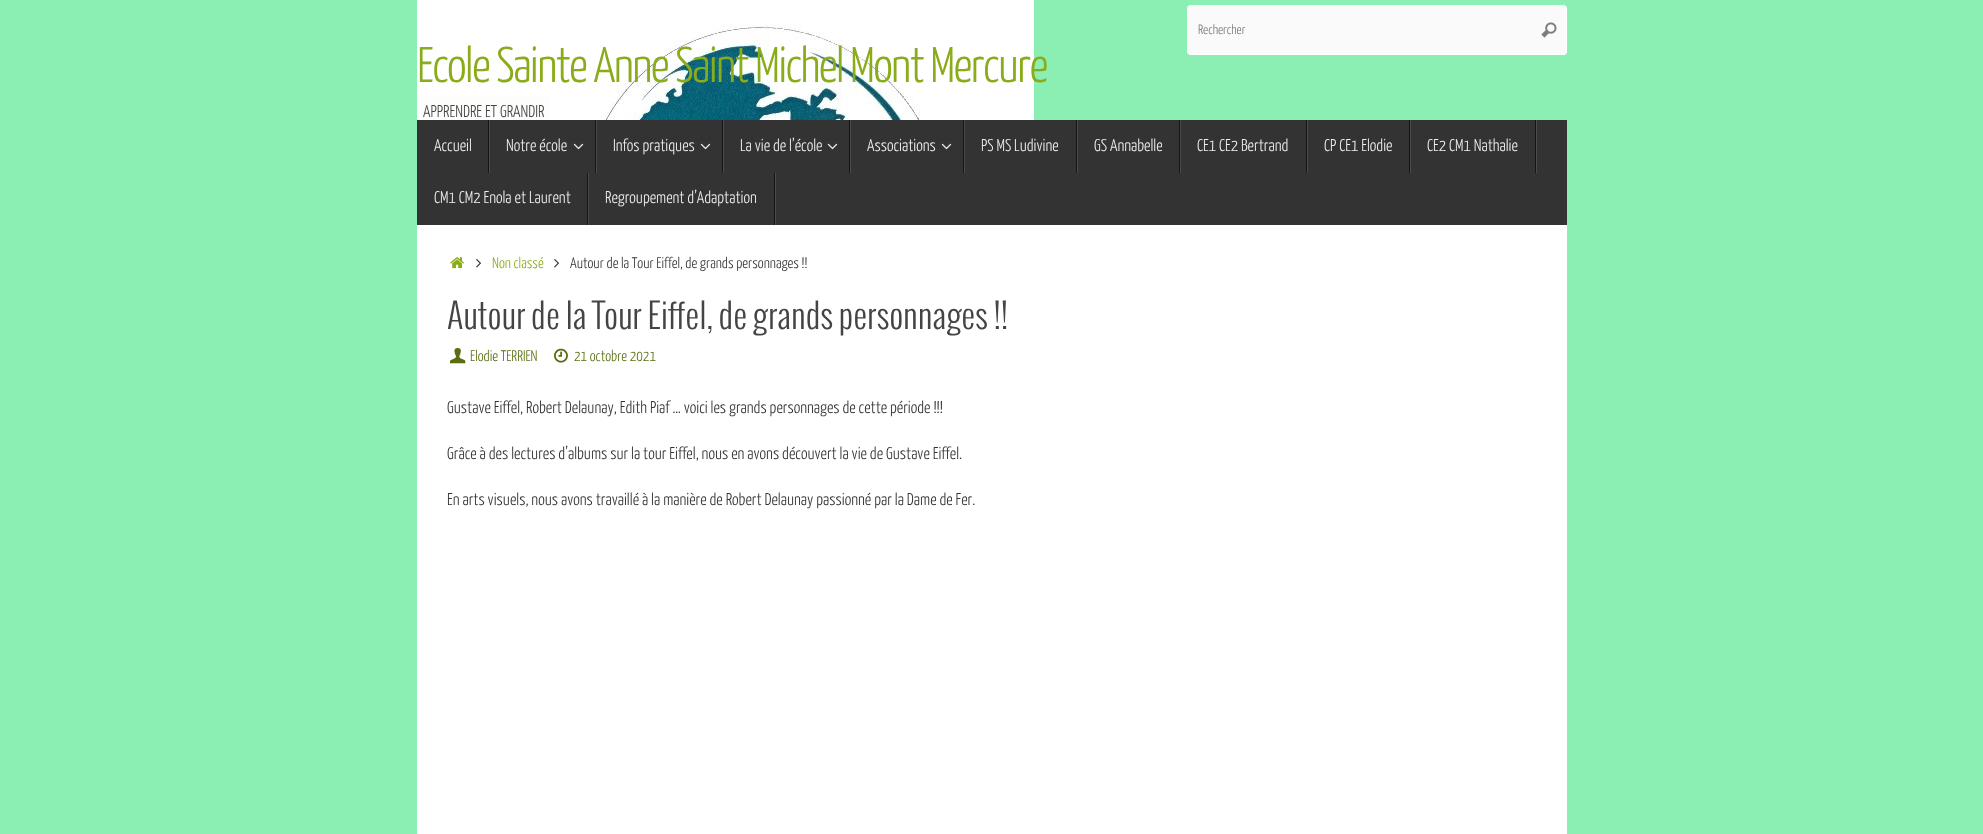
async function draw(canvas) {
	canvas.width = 1983;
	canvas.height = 834;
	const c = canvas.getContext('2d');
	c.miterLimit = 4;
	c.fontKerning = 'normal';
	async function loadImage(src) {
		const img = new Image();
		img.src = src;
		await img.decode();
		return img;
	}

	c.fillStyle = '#8befb4';
	c.fillRect(0, 0, 1983, 834);
	c.drawImage(await loadImage('img1.png'), 417, 0, 617, 120);
	c.fillStyle = '#fafafa';
	c.beginPath();
	c.roundRect(1187, 5, 380, 50, 4);
	c.fill();
	c.save();
	c.beginPath();
	c.rect(1187, 5, 380, 50);
	c.clip();
	c.beginPath();
	c.moveTo(1565.5, 6.5);
	c.bezierCurveTo(1567.5, 8.5, 1566.5, 14.5, 1566.5, 16);
	c.lineTo(1566.5, 44);
	c.bezierCurveTo(1566.5, 46.5, 1568, 54.5, 1563, 54.5);
	c.lineTo(1190, 54.5);
	c.lineTo(1188.5, 53.5);
	c.strokeStyle = '#fff';
	c.stroke();
	c.beginPath();
	c.moveTo(1188.5, 53.5);
	c.bezierCurveTo(1186.5, 51.5, 1187.5, 45.5, 1187.5, 44);
	c.lineTo(1187.5, 16);
	c.bezierCurveTo(1187.5, 13.5, 1186, 5.5, 1191, 5.5);
	c.lineTo(1564, 5.5);
	c.lineTo(1565.5, 6.5);
	c.strokeStyle = '#f7f7f7';
	c.stroke();
	c.restore();
	c.font = '300 13.5px Yanone Kaffeesatz';
	c.fillStyle = '#757575';
	c.fillText('Rechercher', 1198, 34);
	c.drawImage(await loadImage('img2.png'), 1541, 22, 16, 16);
	c.letterSpacing = '-1.5px';
	c.font = '300 50px Yanone Kaffeesatz';
	c.fillStyle = '#8aac1a';
	c.fillText('Ecole Sainte Anne Saint Michel Mont Mercure', 417, 82);
	c.fillStyle = '#fdfdfb';
	c.fillRect(417, 95, 133, 25);
	c.letterSpacing = '0px';
	c.font = '300 17px Yanone Kaffeesatz';
	c.fillStyle = '#444';
	c.fillText('APPRENDRE ET GRANDIR', 423, 117);
	for (const [x, y, w, h, color] of [
		[417, 120, 1150, 105, '#333'],
		[489, 120, 1, 53, '#4b4b4b'],
		[488, 120, 1, 53, '#151515'],
	]) {
		c.fillStyle = color;
		c.fillRect(x, y, w, h);
	}
	c.fillStyle = '#eee';
	c.fillText('Accueil', 434, 151);
	c.fillStyle = '#4b4b4b';
	c.fillRect(596, 120, 1, 53);
	c.fillStyle = '#151515';
	c.fillRect(595, 120, 1, 53);
	c.fillStyle = '#eee';
	c.fillText('Notre école', 506, 151);
	c.drawImage(await loadImage('img3.png'), 573, 143, 11, 7);
	c.fillStyle = '#4b4b4b';
	c.fillRect(723, 120, 1, 53);
	c.fillStyle = '#151515';
	c.fillRect(722, 120, 1, 53);
	c.fillStyle = '#eee';
	c.fillText('Infos pratiques', 613, 151);
	c.drawImage(await loadImage('img3.png'), 700, 143, 11, 7);
	c.fillStyle = '#4b4b4b';
	c.fillRect(850, 120, 1, 53);
	c.fillStyle = '#151515';
	c.fillRect(849, 120, 1, 53);
	c.fillStyle = '#eee';
	c.fillText('La vie de l’école', 740, 151);
	c.drawImage(await loadImage('img3.png'), 827, 143, 11, 7);
	c.fillStyle = '#4b4b4b';
	c.fillRect(964, 120, 1, 53);
	c.fillStyle = '#151515';
	c.fillRect(963, 120, 1, 53);
	c.fillStyle = '#eee';
	c.fillText('Associations', 867, 151);
	c.drawImage(await loadImage('img3.png'), 941, 143, 11, 7);
	c.fillStyle = '#4b4b4b';
	c.fillRect(1077, 120, 1, 53);
	c.fillStyle = '#151515';
	c.fillRect(1076, 120, 1, 53);
	c.fillStyle = '#eee';
	c.fillText('PS MS Ludivine', 981, 151);
	c.fillStyle = '#4b4b4b';
	c.fillRect(1180, 120, 1, 53);
	c.fillStyle = '#151515';
	c.fillRect(1179, 120, 1, 53);
	c.fillStyle = '#eee';
	c.fillText('GS Annabelle', 1094, 151);
	c.fillStyle = '#4b4b4b';
	c.fillRect(1307, 120, 1, 53);
	c.fillStyle = '#151515';
	c.fillRect(1306, 120, 1, 53);
	c.fillStyle = '#eee';
	c.fillText('CE1 CE2 Bertrand', 1197, 151);
	c.fillStyle = '#4b4b4b';
	c.fillRect(1410, 120, 1, 53);
	c.fillStyle = '#151515';
	c.fillRect(1409, 120, 1, 53);
	c.fillStyle = '#eee';
	c.fillText('CP CE1 Elodie', 1324, 151);
	c.fillStyle = '#4b4b4b';
	c.fillRect(1536, 120, 1, 53);
	c.fillStyle = '#151515';
	c.fillRect(1535, 120, 1, 53);
	c.fillStyle = '#eee';
	c.fillText('CE2 CM1 Nathalie', 1427, 151);
	c.fillStyle = '#4b4b4b';
	c.fillRect(588, 173, 1, 52);
	c.fillStyle = '#151515';
	c.fillRect(587, 173, 1, 52);
	c.fillStyle = '#eee';
	c.fillText('CM1 CM2 Enola et Laurent', 434, 203);
	c.fillStyle = '#4b4b4b';
	c.fillRect(775, 173, 1, 52);
	c.fillStyle = '#151515';
	c.fillRect(774, 173, 1, 52);
	c.fillStyle = '#eee';
	c.fillText('Regroupement d’Adaptation', 605, 203);
	c.fillStyle = '#fff';
	c.fillRect(417, 225, 1150, 609);
	c.drawImage(await loadImage('img4.png'), 450, 257, 14, 12);
	c.drawImage(await loadImage('img5.png'), 476, 259, 5, 9);
	c.font = '300 15.25px Yanone Kaffeesatz';
	c.fillStyle = '#8aac1a';
	c.fillText('Non classé', 492, 268);
	c.drawImage(await loadImage('img5.png'), 554, 259, 5, 9);
	c.fillStyle = '#333';
	c.fillText('Autour de la Tour Eiffel, de grands personnages !!', 570, 268);
	c.font = '300 34px Oswald';
	c.fillStyle = '#444';
	c.fillText('Autour de la Tour Eiffel, de grands personnages !!', 447, 329);
	c.drawImage(await loadImage('img6.png'), 450, 348, 16, 16);
	c.font = '300 15.25px Yanone Kaffeesatz';
	c.fillStyle = '#586e10';
	c.fillText('Elodie TERRIEN', 470, 361);
	c.drawImage(await loadImage('img7.png'), 554, 348, 14, 15);
	c.fillText('21 octobre 2021', 574, 361);
	c.font = '300 17px Yanone Kaffeesatz';
	c.fillStyle = '#333';
	for (const [text, x, y] of [
		['Gustave Eiffel, Robert Delaunay, Edith Piaf … voici les grands personnages de cette période !!!', 447, 413],
		['Grâce à des lectures d’albums sur la tour Eiffel, nous en avons découvert la vie de Gustave Eiffel.', 447, 459],
		['En arts visuels, nous avons travaillé à la manière de Robert Delaunay passionné par la Dame de Fer.', 447, 505],
	]) {
		c.fillText(text, x, y);
	}
}

draw(document.querySelector('canvas'));
